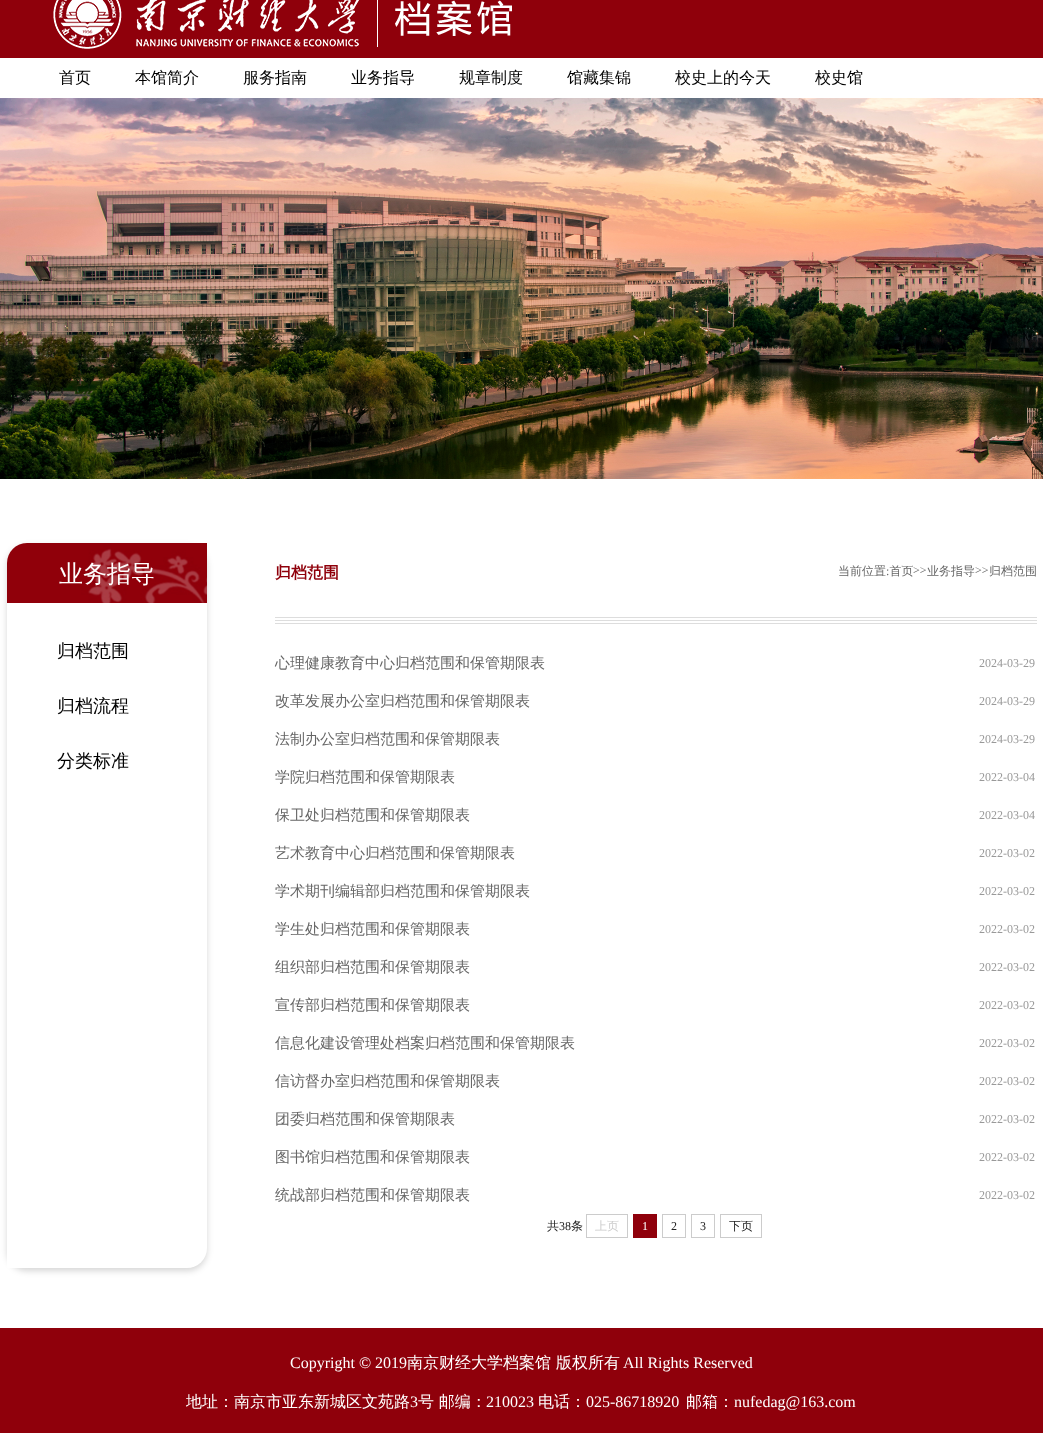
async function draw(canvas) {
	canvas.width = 1043;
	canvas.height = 1433;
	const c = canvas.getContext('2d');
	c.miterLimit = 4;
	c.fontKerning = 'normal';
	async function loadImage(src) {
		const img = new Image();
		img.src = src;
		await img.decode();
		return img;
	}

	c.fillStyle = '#fff';
	c.fillRect(0, 0, 1043, 1433);
	c.fillStyle = '#8f000b';
	c.fillRect(0, 0, 1043, 58);
	c.drawImage(await loadImage('img1.png'), 53, 0, 459, 49);
	c.font = '500 16px WenQuanYi Zen Hei';
	c.fillStyle = '#000';
	for (const [text, x, y] of [
		['首页', 59, 83],
		['本馆简介', 135, 83],
		['服务指南', 243, 83],
		['业务指导', 351, 83],
		['规章制度', 459, 83],
		['馆藏集锦', 567, 83],
		['校史上的今天', 675, 83],
		['校史馆', 815, 83],
	]) {
		c.fillText(text, x, y);
	}
	c.drawImage(await loadImage('img2.png'), 0, 98, 1043, 381);
	c.fillStyle = '#00000029';
	c.filter = 'blur(3px)';
	c.beginPath();
	c.roundRect(7, 546, 200, 725, 20);
	c.fill();
	c.filter = 'none';
	c.fillStyle = '#fff';
	c.beginPath();
	c.roundRect(7, 543, 200, 725, [20, 0, 20, 0]);
	c.fill();
	c.drawImage(await loadImage('img3.png'), 7, 543, 200, 60);
	c.font = '500 24px WenQuanYi Zen Hei';
	c.fillText('业务指导', 59, 582);
	c.font = '500 18px WenQuanYi Zen Hei';
	c.fillStyle = '#000';
	for (const [text, x, y] of [
		['归档范围', 57, 657],
		['归档流程', 57, 712],
		['分类标准', 57, 767],
	]) {
		c.fillText(text, x, y);
	}
	c.font = 'bold 16px WenQuanYi Zen Hei';
	c.fillStyle = '#8f000b';
	c.fillText('归档范围', 275, 578);
	c.font = '500 12px WenQuanYi Zen Hei';
	c.fillStyle = '#666';
	c.fillText('当前位置 首页', 838, 575);
	c.font = '12px Liberation Serif';
	c.fillText('>>', 913, 574);
	c.font = '500 12px WenQuanYi Zen Hei';
	c.fillText('业务指导', 927, 575);
	c.font = '12px Liberation Serif';
	c.fillText('>>', 975, 574);
	c.font = '500 12px WenQuanYi Zen Hei';
	c.fillText('归档范围', 989, 575);
	c.font = '12px Liberation Serif';
	c.fillText(':', 886, 575);
	c.drawImage(await loadImage('img4.png'), 275, 617, 762, 7);
	c.font = '500 15px WenQuanYi Zen Hei';
	c.fillText('心理健康教育中心归档范围和保管期限表', 275, 668);
	c.font = '12px Liberation Serif';
	c.fillStyle = '#999';
	c.fillText('2024-03-29', 979, 667);
	c.font = '500 15px WenQuanYi Zen Hei';
	c.fillStyle = '#666';
	c.fillText('改革发展办公室归档范围和保管期限表', 275, 706);
	c.font = '12px Liberation Serif';
	c.fillStyle = '#999';
	c.fillText('2024-03-29', 979, 705);
	c.font = '500 15px WenQuanYi Zen Hei';
	c.fillStyle = '#666';
	c.fillText('法制办公室归档范围和保管期限表', 275, 744);
	c.font = '12px Liberation Serif';
	c.fillStyle = '#999';
	c.fillText('2024-03-29', 979, 743);
	c.font = '500 15px WenQuanYi Zen Hei';
	c.fillStyle = '#666';
	c.fillText('学院归档范围和保管期限表', 275, 782);
	c.font = '12px Liberation Serif';
	c.fillStyle = '#999';
	c.fillText('2022-03-04', 979, 781);
	c.font = '500 15px WenQuanYi Zen Hei';
	c.fillStyle = '#666';
	c.fillText('保卫处归档范围和保管期限表', 275, 820);
	c.font = '12px Liberation Serif';
	c.fillStyle = '#999';
	c.fillText('2022-03-04', 979, 819);
	c.font = '500 15px WenQuanYi Zen Hei';
	c.fillStyle = '#666';
	c.fillText('艺术教育中心归档范围和保管期限表', 275, 858);
	c.font = '12px Liberation Serif';
	c.fillStyle = '#999';
	c.fillText('2022-03-02', 979, 857);
	c.font = '500 15px WenQuanYi Zen Hei';
	c.fillStyle = '#666';
	c.fillText('学术期刊编辑部归档范围和保管期限表', 275, 896);
	c.font = '12px Liberation Serif';
	c.fillStyle = '#999';
	c.fillText('2022-03-02', 979, 895);
	c.font = '500 15px WenQuanYi Zen Hei';
	c.fillStyle = '#666';
	c.fillText('学生处归档范围和保管期限表', 275, 934);
	c.font = '12px Liberation Serif';
	c.fillStyle = '#999';
	c.fillText('2022-03-02', 979, 933);
	c.font = '500 15px WenQuanYi Zen Hei';
	c.fillStyle = '#666';
	c.fillText('组织部归档范围和保管期限表', 275, 972);
	c.font = '12px Liberation Serif';
	c.fillStyle = '#999';
	c.fillText('2022-03-02', 979, 971);
	c.font = '500 15px WenQuanYi Zen Hei';
	c.fillStyle = '#666';
	c.fillText('宣传部归档范围和保管期限表', 275, 1010);
	c.font = '12px Liberation Serif';
	c.fillStyle = '#999';
	c.fillText('2022-03-02', 979, 1009);
	c.font = '500 15px WenQuanYi Zen Hei';
	c.fillStyle = '#666';
	c.fillText('信息化建设管理处档案归档范围和保管期限表', 275, 1048);
	c.font = '12px Liberation Serif';
	c.fillStyle = '#999';
	c.fillText('2022-03-02', 979, 1047);
	c.font = '500 15px WenQuanYi Zen Hei';
	c.fillStyle = '#666';
	c.fillText('信访督办室归档范围和保管期限表', 275, 1086);
	c.font = '12px Liberation Serif';
	c.fillStyle = '#999';
	c.fillText('2022-03-02', 979, 1085);
	c.font = '500 15px WenQuanYi Zen Hei';
	c.fillStyle = '#666';
	c.fillText('团委归档范围和保管期限表', 275, 1124);
	c.font = '12px Liberation Serif';
	c.fillStyle = '#999';
	c.fillText('2022-03-02', 979, 1123);
	c.font = '500 15px WenQuanYi Zen Hei';
	c.fillStyle = '#666';
	c.fillText('图书馆归档范围和保管期限表', 275, 1162);
	c.font = '12px Liberation Serif';
	c.fillStyle = '#999';
	c.fillText('2022-03-02', 979, 1161);
	c.font = '500 15px WenQuanYi Zen Hei';
	c.fillStyle = '#666';
	c.fillText('统战部归档范围和保管期限表', 275, 1200);
	c.font = '12px Liberation Serif';
	c.fillStyle = '#999';
	c.fillText('2022-03-02', 979, 1199);
	c.font = '500 12px WenQuanYi Zen Hei';
	c.fillStyle = '#222';
	c.fillText('共', 547, 1230);
	c.font = '12px Liberation Serif';
	c.fillText('38', 559, 1230);
	c.font = '500 12px WenQuanYi Zen Hei';
	c.fillText('条', 571, 1230);
	c.strokeStyle = '#ccc';
	c.strokeRect(586.5, 1214.5, 41, 23);
	c.fillStyle = '#ccc';
	c.fillText('上页', 595, 1230);
	c.fillStyle = '#8f000b';
	c.fillRect(633, 1214, 24, 24);
	c.font = '12px Liberation Serif';
	c.fillStyle = '#fff';
	c.fillText('1', 642, 1230);
	c.strokeRect(662.5, 1214.5, 23, 23);
	c.fillStyle = '#222';
	c.fillText('2', 671, 1230);
	c.strokeRect(691.5, 1214.5, 23, 23);
	c.fillText('3', 700, 1230);
	c.strokeRect(720.5, 1214.5, 41, 23);
	c.font = '500 12px WenQuanYi Zen Hei';
	c.fillText('下页', 729, 1230);
	c.fillStyle = '#8f000b';
	c.fillRect(0, 1328, 1043, 105);
	c.font = '16px Liberation Serif';
	c.fillStyle = '#fff';
	c.fillText('Copyright © 2019', 290, 1368);
	c.font = '500 16px WenQuanYi Zen Hei';
	c.fillText('南京财经大学档案馆', 407, 1368);
	c.fillText('版权所有', 556, 1368);
	c.font = '16px Liberation Serif';
	c.fillText('All Rights Reserved', 623, 1368);
	c.font = '500 16px WenQuanYi Zen Hei';
	c.fillText('地址：南京市亚东新城区文苑路', 186, 1407);
	c.font = '16px Liberation Serif';
	c.fillText('3', 410, 1407);
	c.font = '500 16px WenQuanYi Zen Hei';
	c.fillText('号 邮编：', 418, 1407);
	c.font = '16px Liberation Serif';
	c.fillText('210023', 486, 1407);
	c.font = '500 16px WenQuanYi Zen Hei';
	c.fillText('电话：', 538, 1407);
	c.font = '16px Liberation Serif';
	c.fillText('025-86718920', 586, 1407);
	c.font = '500 16px WenQuanYi Zen Hei';
	c.fillText('邮箱：', 686, 1407);
	c.font = '16px Liberation Serif';
	c.fillText('nufedag@163.com', 734, 1407);
}

draw(document.querySelector('canvas'));
